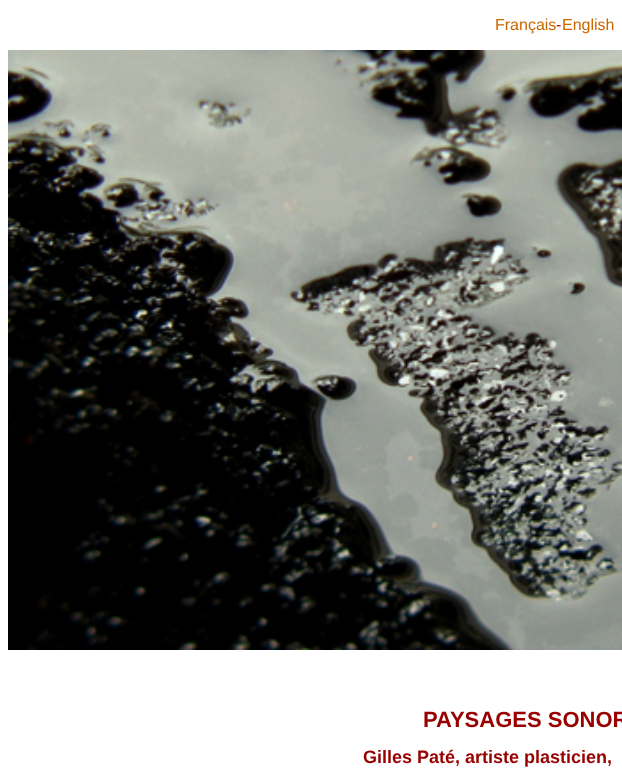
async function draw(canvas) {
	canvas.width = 622;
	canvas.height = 770;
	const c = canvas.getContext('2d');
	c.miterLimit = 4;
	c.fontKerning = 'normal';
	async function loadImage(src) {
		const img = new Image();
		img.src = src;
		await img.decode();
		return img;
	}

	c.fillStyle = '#fff';
	c.fillRect(0, 0, 622, 770);
	c.font = '16px Liberation Sans';
	c.fillStyle = '#c60';
	c.fillText('Français', 495, 30);
	c.fillStyle = '#900';
	c.fillText('-', 556, 30);
	c.fillStyle = '#c60';
	c.fillText('English', 562, 30);
	c.drawImage(await loadImage('img1.png'), 8, 50, 614, 600);
	c.font = 'bold 22px Liberation Sans';
	c.fillStyle = '#900';
	c.fillText('PAYSAGES SONOR', 423, 727);
	c.font = 'bold 18px Liberation Sans';
	c.fillText('Gilles Paté, artiste plasticien,', 363, 763);
}

draw(document.querySelector('canvas'));
